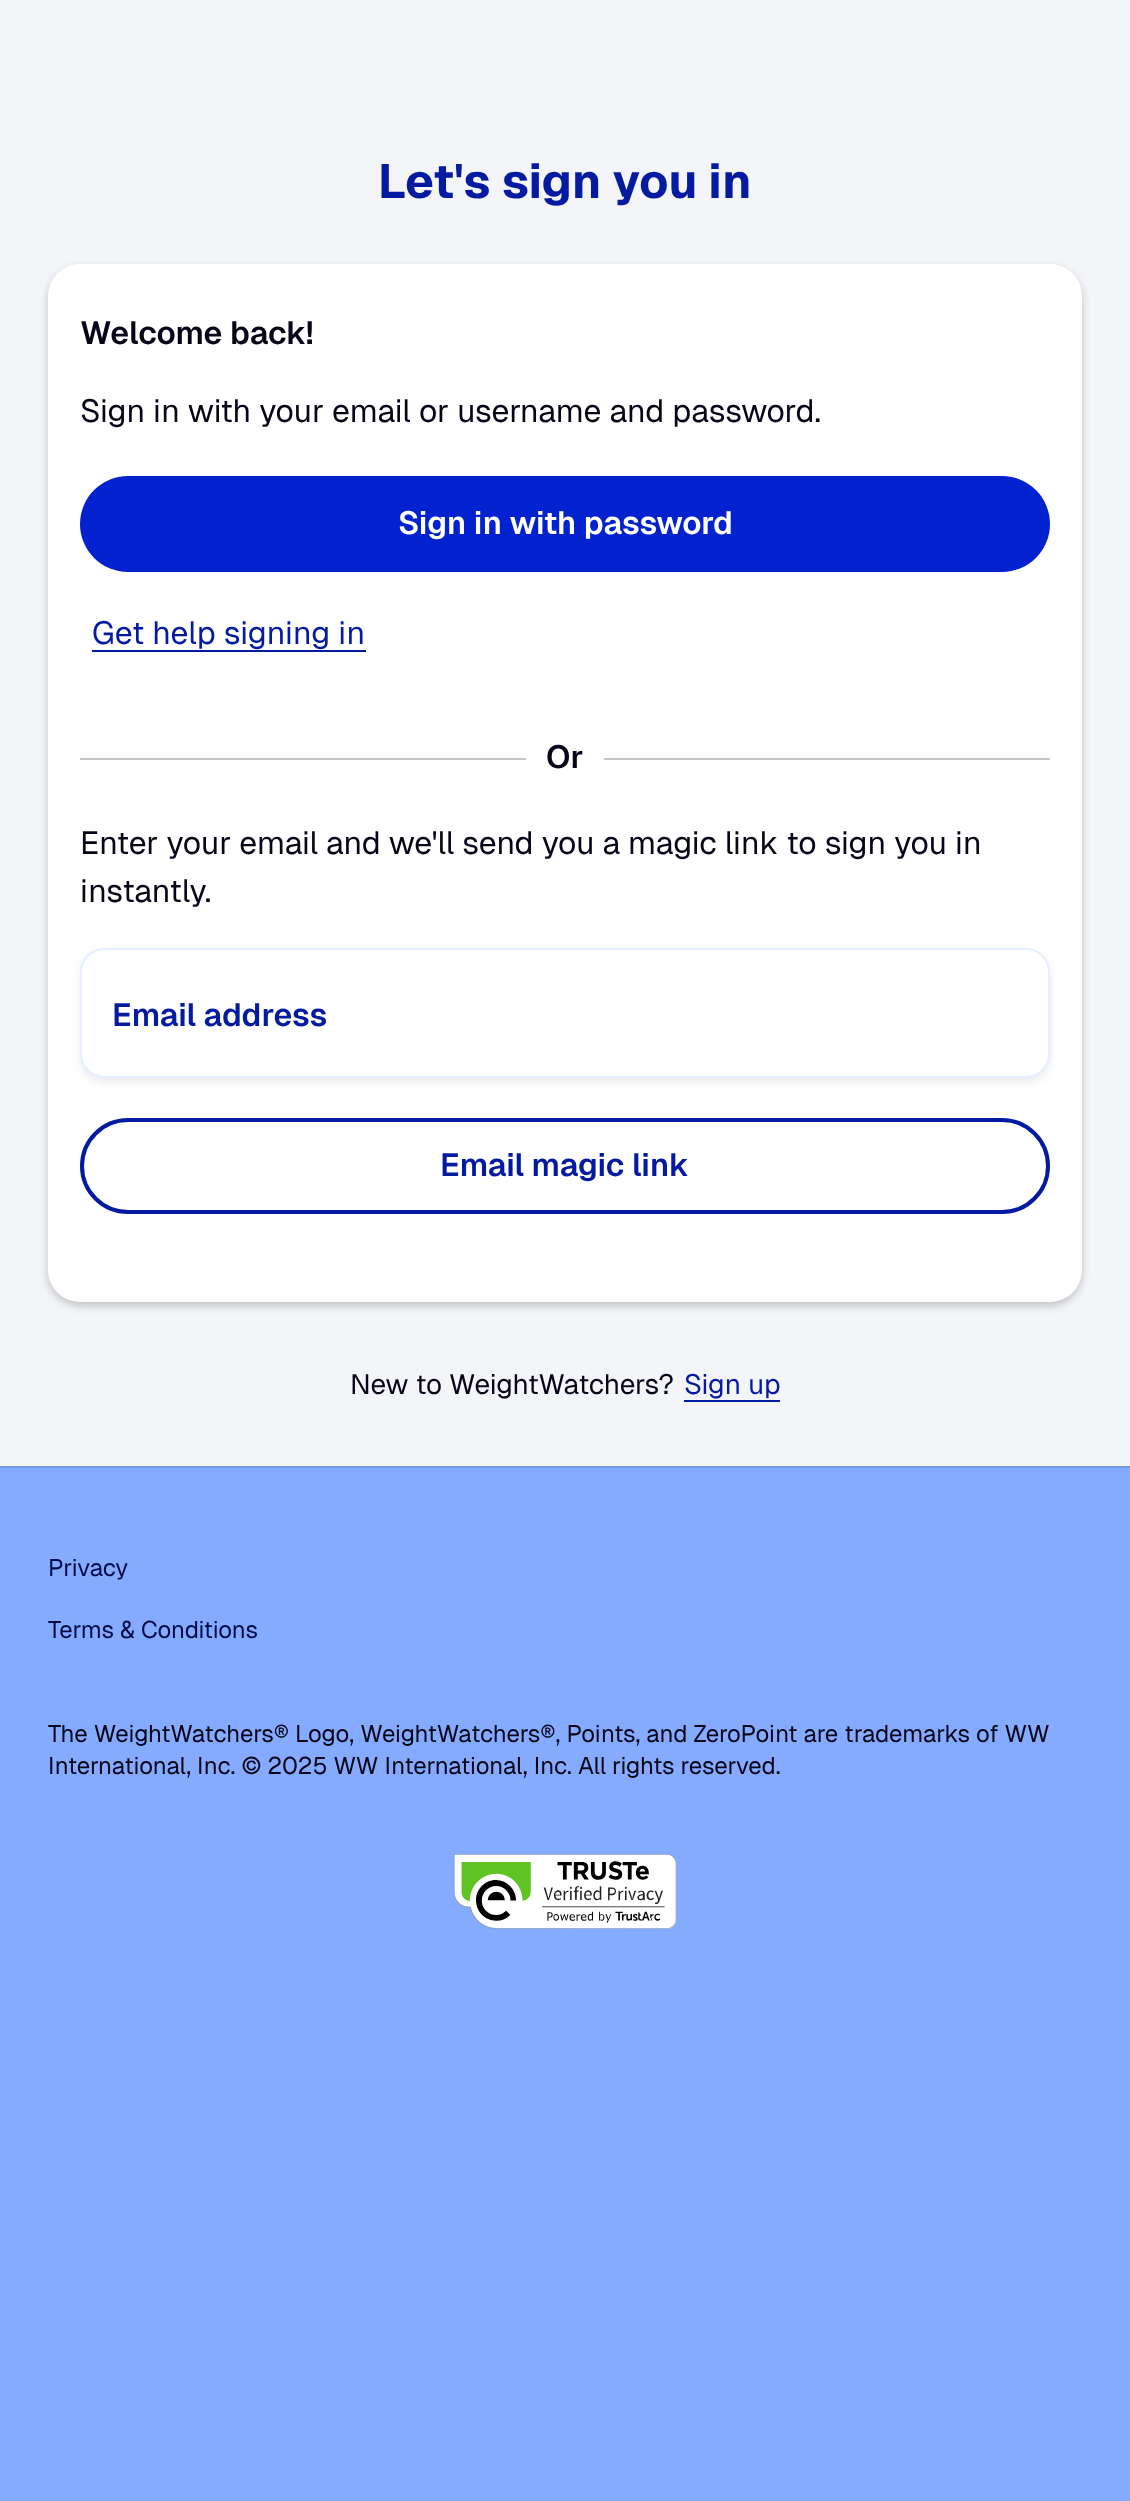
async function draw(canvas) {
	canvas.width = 1130;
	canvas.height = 2501;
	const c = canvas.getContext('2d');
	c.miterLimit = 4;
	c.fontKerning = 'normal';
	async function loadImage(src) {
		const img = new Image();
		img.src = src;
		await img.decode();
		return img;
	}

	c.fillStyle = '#f4f5f9';
	c.fillRect(0, 0, 1130, 2501);
	c.font = 'bold 48px Geist';
	c.fillStyle = '#031aa1';
	c.fillText('Let\'s sign you in', 378, 198);
	c.fillStyle = '#00000033';
	c.filter = 'blur(4px)';
	c.beginPath();
	c.roundRect(48, 268, 1034, 1038, 32);
	c.fill();
	c.filter = 'none';
	c.fillStyle = '#fff';
	c.beginPath();
	c.roundRect(48, 264, 1034, 1038, 32);
	c.fill();
	c.font = '600 32px Geist';
	c.fillStyle = '#070517';
	c.fillText('Welcome back!', 80, 344);
	c.font = '32px Geist';
	c.fillText('Sign in with your email or username and password.', 80, 422);
	c.fillStyle = '#0222d0';
	c.beginPath();
	c.roundRect(80, 476, 970, 96, 48);
	c.fill();
	c.font = '600 32px Geist';
	c.fillStyle = '#fff';
	c.fillText('Sign in with password', 398, 534);
	c.font = '32px Geist';
	c.fillStyle = '#031aa1';
	c.fillText('Get help signing in', 92, 644);
	c.fillRect(92, 650, 274, 2);
	c.fillStyle = '#c3c5c8';
	c.fillRect(80, 758, 446, 2);
	c.font = '600 32px Geist';
	c.fillStyle = '#070517';
	c.fillText('Or', 546, 768);
	c.fillStyle = '#c3c5c8';
	c.fillRect(604, 758, 446, 2);
	c.font = '32px Geist';
	c.fillStyle = '#070517';
	c.fillText('Enter your email and we\'ll send you a magic link to sign you in', 80, 854);
	c.fillText('instantly.', 80, 902);
	c.fillStyle = '#07051714';
	c.filter = 'blur(4px)';
	c.beginPath();
	c.roundRect(80, 952, 970, 130, 24);
	c.fill();
	c.filter = 'none';
	c.fillStyle = '#fff';
	c.beginPath();
	c.roundRect(81, 949, 968, 128, 23);
	c.fill();
	c.strokeStyle = '#e6efff';
	c.lineWidth = 2;
	c.stroke();
	c.font = '600 32px Geist';
	c.fillStyle = '#031aa1';
	c.fillText('Email address', 112, 1026);
	c.beginPath();
	c.roundRect(82, 1120, 966, 92, 46);
	c.strokeStyle = '#031aa1';
	c.lineWidth = 4;
	c.stroke();
	c.fillText('Email magic link', 440, 1176);
	c.font = '28px Geist';
	c.fillStyle = '#070517';
	c.fillText('New to WeightWatchers?', 350, 1394);
	c.fillStyle = '#031aa1';
	c.fillText('Sign up', 684, 1394);
	for (const [x, y, w, h, color] of [
		[684, 1400, 96, 2, '#031aa1'],
		[0, 1468, 1130, 1033, '#84abff'],
		[0, 1466, 1130, 2, '#779ae8'],
	]) {
		c.fillStyle = color;
		c.fillRect(x, y, w, h);
	}
	c.font = '24px Geist';
	c.fillStyle = '#020b46';
	c.fillText('Privacy', 48, 1576);
	c.fillText('Terms & Conditions', 48, 1638);
	c.fillStyle = '#070517';
	c.fillText('The WeightWatchers® Logo, WeightWatchers®, Points, and ZeroPoint are trademarks of WW', 48, 1742);
	c.fillText('International, Inc. © 2025 WW International, Inc. All rights reserved.', 48, 1774);
	c.drawImage(await loadImage('img1.png'), 453, 1854, 224, 75);
}

draw(document.querySelector('canvas'));
